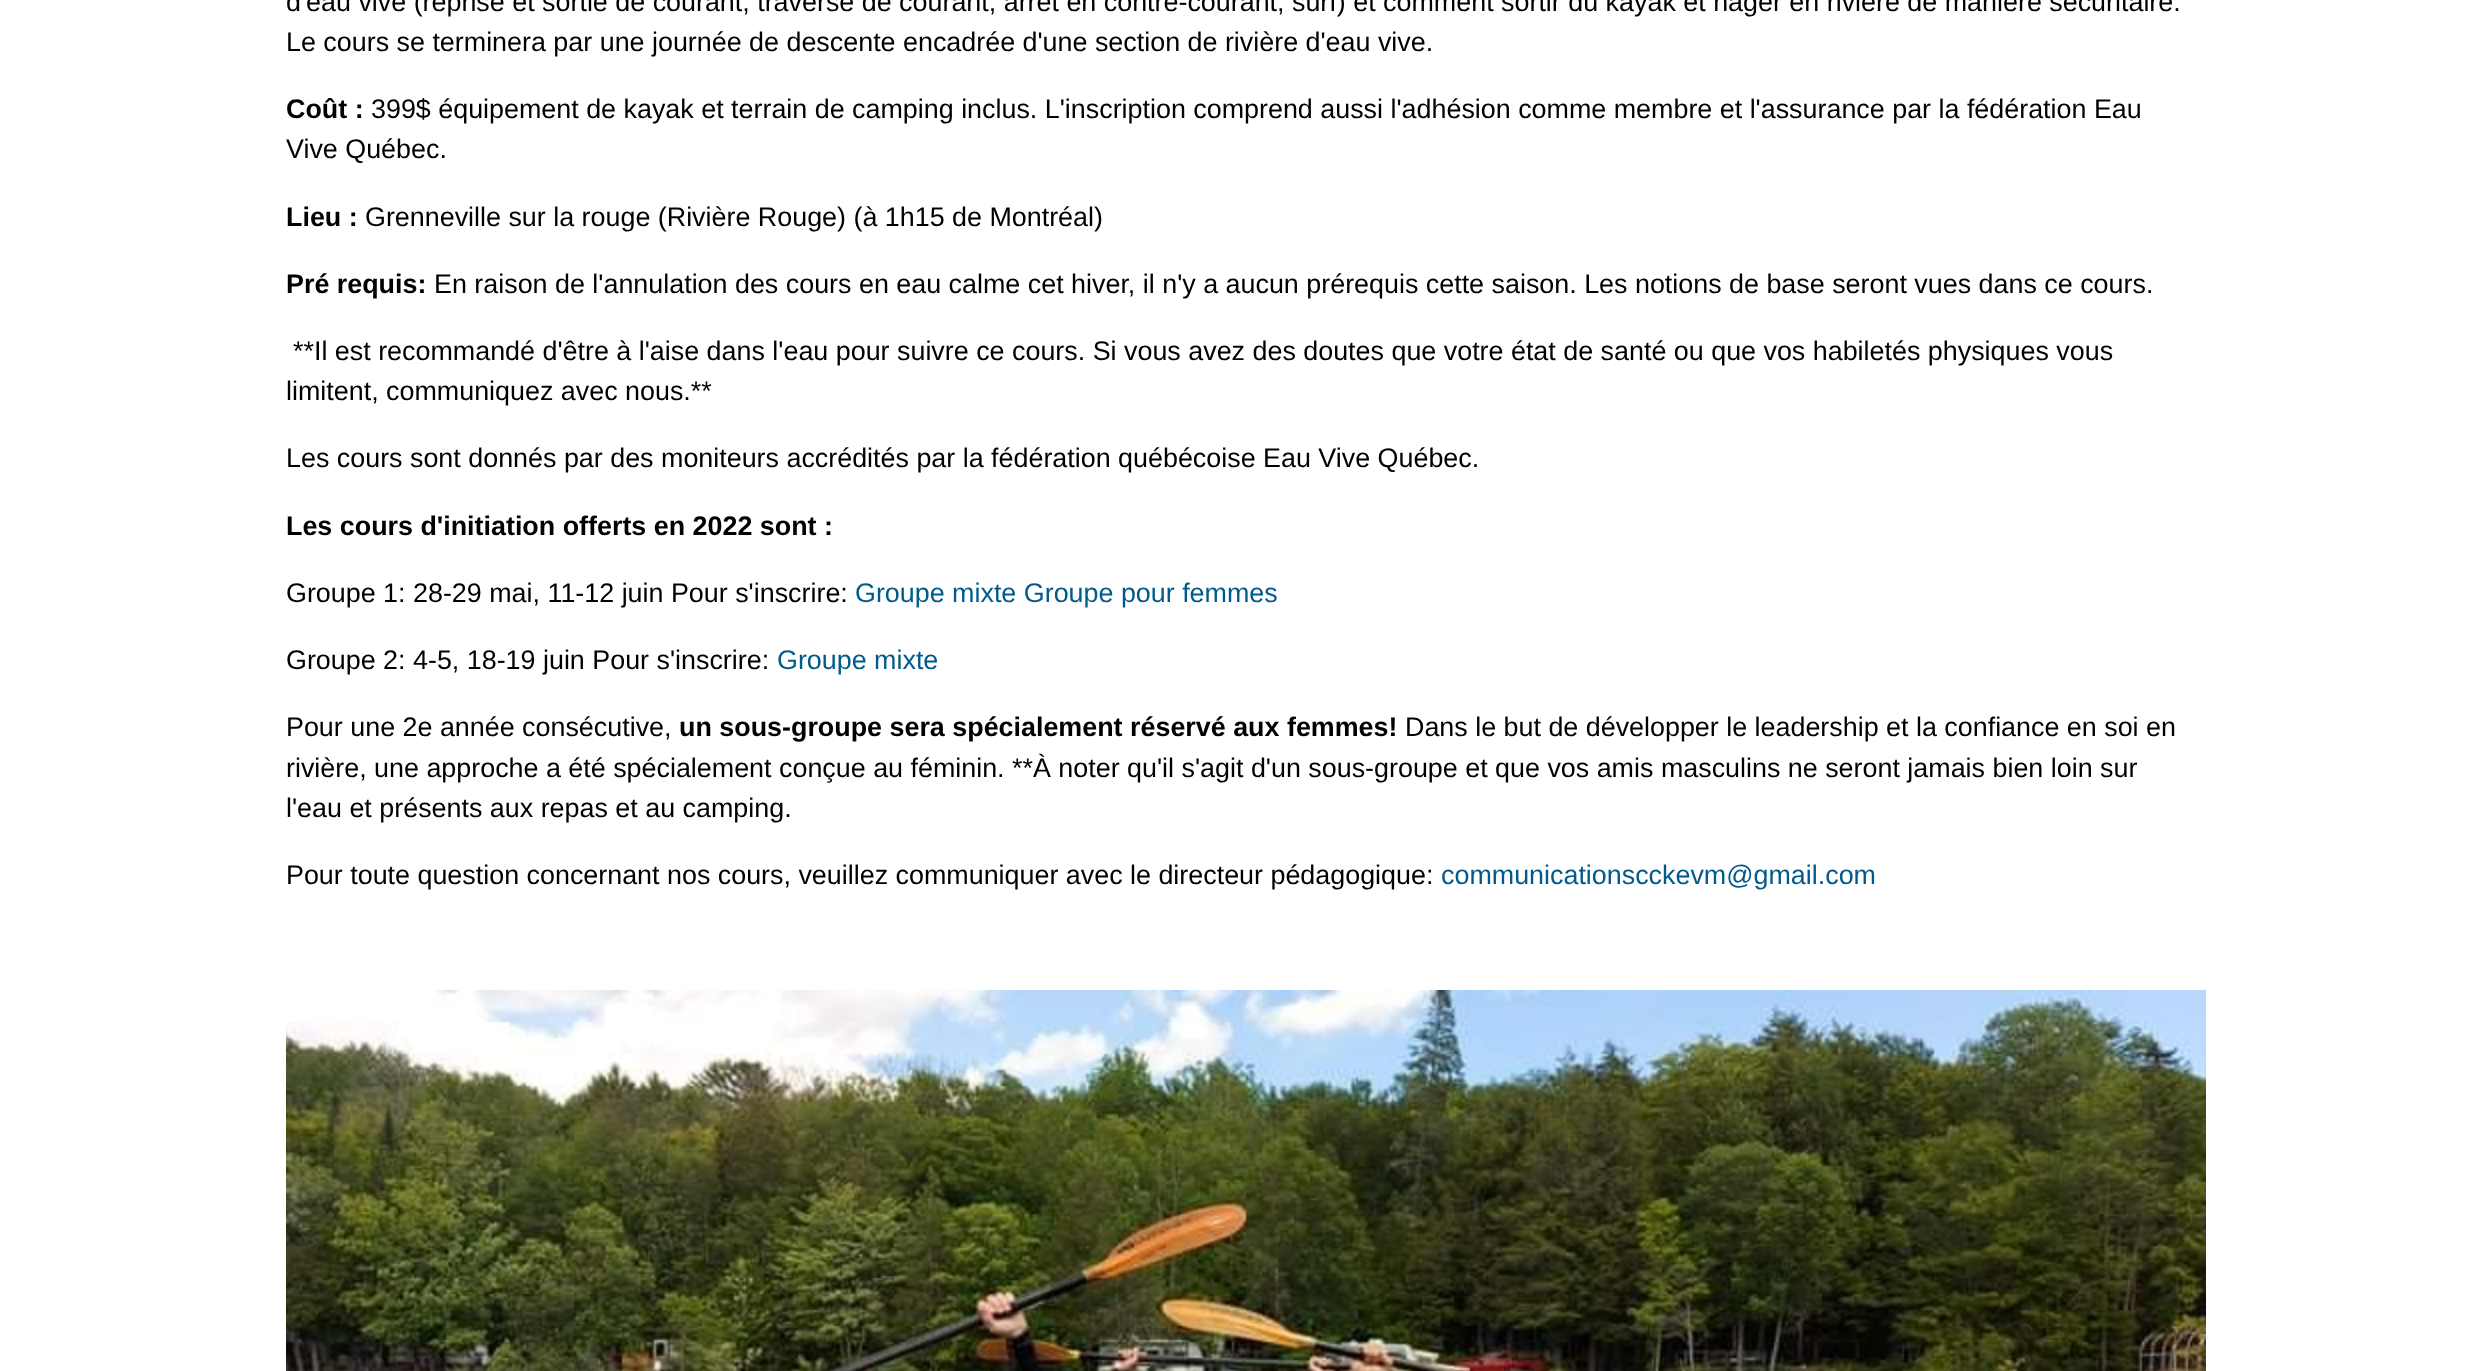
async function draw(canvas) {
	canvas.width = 2472;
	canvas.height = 1371;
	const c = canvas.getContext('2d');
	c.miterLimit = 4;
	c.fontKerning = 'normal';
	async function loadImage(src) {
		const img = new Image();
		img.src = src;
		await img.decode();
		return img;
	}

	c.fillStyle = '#fff';
	c.fillRect(0, 0, 2472, 1371);
	c.font = '26.88px Liberation Sans';
	c.fillStyle = '#000';
	c.fillText('d\'eau vive (reprise et sortie de courant, traverse de courant, arrêt en contre-courant, surf) et comment sortir du kayak et nager en rivière de manière sécuritaire.', 286, 11);
	c.fillText('Le cours se terminera par une journée de descente encadrée d\'une section de rivière d\'eau vive.', 286, 51);
	c.font = 'bold 26.88px Liberation Sans';
	c.fillText('Coût :', 286, 118);
	c.font = '26.88px Liberation Sans';
	c.fillText('399$ équipement de kayak et terrain de camping inclus. L\'inscription comprend aussi l\'adhésion comme membre et l\'assurance par la fédération Eau', 371, 118);
	c.fillText('Vive Québec.', 286, 158);
	c.font = 'bold 26.88px Liberation Sans';
	c.fillText('Lieu :', 286, 226);
	c.font = '26.88px Liberation Sans';
	c.fillText('Grenneville sur la rouge (Rivière Rouge) (à 1h15 de Montréal)', 365, 226);
	c.font = 'bold 26.88px Liberation Sans';
	c.fillText('Pré requis:', 286, 293);
	c.font = '26.88px Liberation Sans';
	for (const [text, x, y] of [
		['En raison de l\'annulation des cours en eau calme cet hiver, il n\'y a aucun prérequis cette saison. Les notions de base seront vues dans ce cours.', 434, 293],
		['**Il est recommandé d\'être à l\'aise dans l\'eau pour suivre ce cours. Si vous avez des doutes que votre état de santé ou que vos habiletés physiques vous', 293, 360],
		['limitent, communiquez avec nous.**', 286, 400],
		['Les cours sont donnés par des moniteurs accrédités par la fédération québécoise Eau Vive Québec.', 286, 467],
	]) {
		c.fillText(text, x, y);
	}
	c.font = 'bold 26.88px Liberation Sans';
	c.fillText('Les cours d\'initiation offerts en 2022 sont :', 286, 535);
	c.font = '26.88px Liberation Sans';
	c.fillText('Groupe 1: 28-29 mai, 11-12 juin Pour s\'inscrire:', 286, 602);
	c.fillStyle = '#005a8c';
	c.fillText('Groupe mixte Groupe pour femmes', 855, 602);
	c.fillStyle = '#000';
	c.fillText('Groupe 2: 4-5, 18-19 juin Pour s\'inscrire:', 286, 669);
	c.fillStyle = '#005a8c';
	c.fillText('Groupe mixte', 777, 669);
	c.fillStyle = '#000';
	c.fillText('Pour une 2e année consécutive,', 286, 736);
	c.font = 'bold 26.88px Liberation Sans';
	c.fillText('un sous-groupe sera spécialement réservé aux femmes!', 679, 736);
	c.font = '26.88px Liberation Sans';
	for (const [text, x, y] of [
		['Dans le but de développer le leadership et la confiance en soi en', 1405, 736],
		['rivière, une approche a été spécialement conçue au féminin. **À noter qu\'il s\'agit d\'un sous-groupe et que vos amis masculins ne seront jamais bien loin sur', 286, 777],
		['l\'eau et présents aux repas et au camping.', 286, 817],
		['Pour toute question concernant nos cours, veuillez communiquer avec le directeur pédagogique:', 286, 884],
	]) {
		c.fillText(text, x, y);
	}
	c.fillStyle = '#005a8c';
	c.fillText('communicationscckevm@gmail.com', 1441, 884);
	c.drawImage(await loadImage('img1.png'), 286, 990, 1920, 381);
}

draw(document.querySelector('canvas'));
